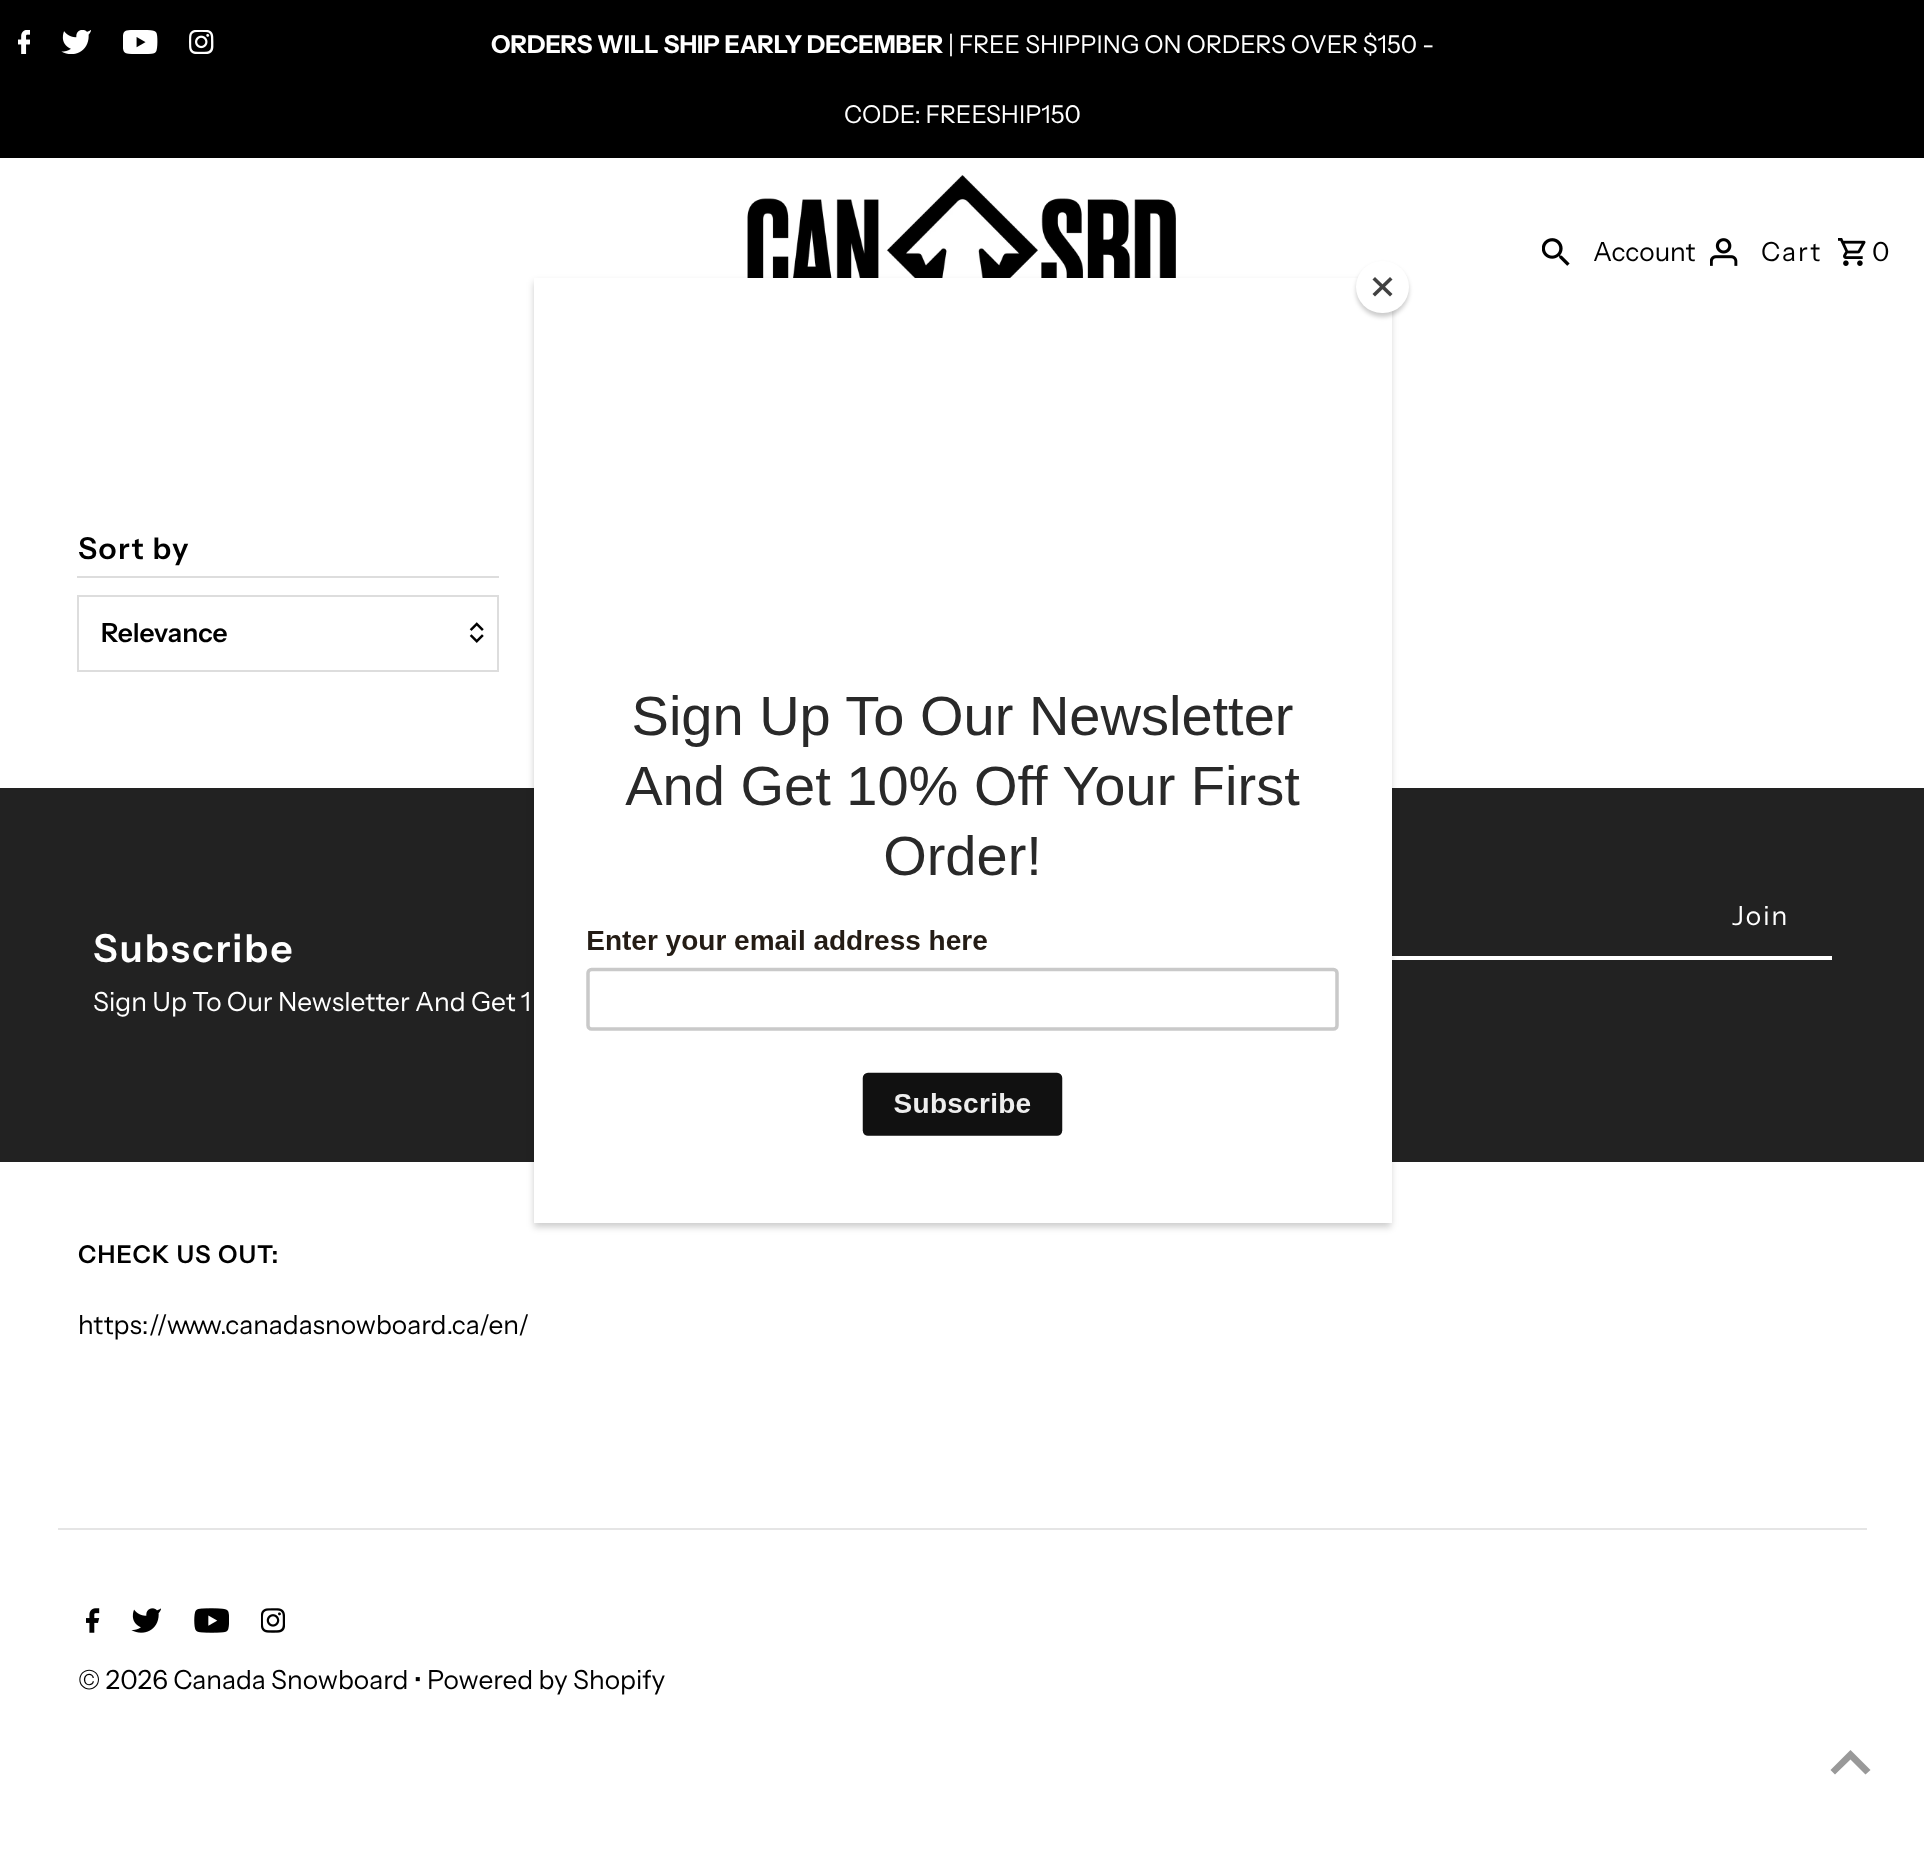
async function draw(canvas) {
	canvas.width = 1924;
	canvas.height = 1852;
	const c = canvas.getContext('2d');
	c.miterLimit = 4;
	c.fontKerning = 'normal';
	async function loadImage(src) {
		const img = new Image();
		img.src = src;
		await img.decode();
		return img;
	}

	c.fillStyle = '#fff';
	c.fillRect(0, 0, 1924, 1852);
	c.fillStyle = '#000';
	c.fillRect(0, 0, 1924, 158);
	c.drawImage(await loadImage('img1.png'), 18, 30, 12, 24);
	c.drawImage(await loadImage('img2.png'), 61, 30, 30, 24);
	c.drawImage(await loadImage('img3.png'), 123, 30, 35, 24);
	c.drawImage(await loadImage('img4.png'), 189, 30, 25, 24);
	c.font = 'bold 24.5px Instrument Sans';
	c.fillStyle = '#fff';
	c.fillText('ORDERS WILL SHIP EARLY DECEMBER', 491, 53);
	c.font = '24.5px Instrument Sans';
	c.fillText('| FREE SHIPPING ON ORDERS OVER $150 -', 948, 53);
	c.fillText('CODE: FREESHIP150', 844, 123);
	c.drawImage(await loadImage('img5.png'), 747, 175, 429, 103);
	c.drawImage(await loadImage('img6.png'), 1542, 238, 28, 28);
	c.font = '26.25px Instrument Sans';
	c.fillStyle = '#000';
	c.fillText('Account', 1593, 261);
	c.drawImage(await loadImage('img7.png'), 1710, 238, 28, 28);
	c.letterSpacing = '2px';
	c.fillText('Cart', 1761, 261);
	c.drawImage(await loadImage('img8.png'), 1838, 238, 28, 28);
	c.fillText('0', 1872, 261);
	c.fillStyle = '#ddd';
	c.fillRect(77, 576, 422, 2);
	c.letterSpacing = '1.5px';
	c.font = '600 30px Instrument Sans';
	c.fillStyle = '#000';
	c.fillText('Sort by', 78, 559);
	c.strokeStyle = '#ddd';
	c.lineWidth = 2;
	c.strokeRect(78, 596, 420, 75);
	c.letterSpacing = '0px';
	c.font = '600 26.25px Instrument Sans';
	c.fillText('Relevance', 101, 642);
	c.drawImage(await loadImage('img9.png'), 469, 622, 15, 21);
	c.fillStyle = '#222';
	c.fillRect(0, 788, 1924, 374);
	c.letterSpacing = '2px';
	c.font = '26.25px Instrument Sans';
	c.fillStyle = '#fff';
	c.fillText('Join', 1732, 925);
	c.fillRect(1392, 956, 440, 4);
	c.font = '600 38.5px Instrument Sans';
	c.fillText('Subscribe', 93, 962);
	c.letterSpacing = '0px';
	c.font = '26.25px Instrument Sans';
	c.fillText('Sign Up To Our Newsletter And Get 1', 93, 1011);
	c.letterSpacing = '1.25px';
	c.font = '600 24.5px Instrument Sans';
	c.fillStyle = '#000';
	c.fillText('CHECK US OUT:', 78, 1263);
	c.letterSpacing = '0px';
	c.font = '26.25px Instrument Sans';
	c.fillText('https://www.canadasnowboard.ca/en/', 78, 1334);
	c.fillStyle = '#e5e5e5';
	c.fillRect(58, 1528, 1809, 2);
	c.drawImage(await loadImage('img10.png'), 86, 1608, 14, 25);
	c.drawImage(await loadImage('img11.png'), 131, 1608, 30, 25);
	c.drawImage(await loadImage('img12.png'), 194, 1608, 35, 25);
	c.drawImage(await loadImage('img13.png'), 261, 1608, 24, 25);
	c.fillStyle = '#000';
	c.fillText('© 2026 Canada Snowboard • Powered by Shopify', 78, 1689);
	c.fillStyle = '#999';
	c.beginPath();
	c.moveTo(1850.5, 1750);
	c.lineTo(1830.5, 1770);
	c.lineTo(1835, 1774.5);
	c.lineTo(1850.5, 1759.5);
	c.lineTo(1865.5, 1774.5);
	c.lineTo(1870.5, 1770);
	c.closePath();
	c.fill();
	c.fillStyle = '#00000033';
	c.filter = 'blur(3.5px)';
	c.beginPath();
	c.rect(534, 282, 857, 945);
	c.fill();
	c.filter = 'none';
	c.drawImage(await loadImage('img14.png'), 534, 278, 858, 945);
	c.filter = 'blur(2px)';
	c.beginPath();
	c.roundRect(1356, 264, 53, 53, 26.5);
	c.fill();
	c.filter = 'none';
	c.fillStyle = '#fff';
	c.beginPath();
	c.roundRect(1356, 261, 53, 52, 26);
	c.fill();
	c.fillStyle = '#414141';
	c.beginPath();
	c.moveTo(1390, 277);
	c.lineTo(1392.5, 279.5);
	c.lineTo(1375, 296.5);
	c.lineTo(1372.5, 294);
	c.closePath();
	c.fill();
	c.beginPath();
	c.moveTo(1372.5, 279.5);
	c.lineTo(1375, 277);
	c.lineTo(1392.5, 294);
	c.lineTo(1390, 296.5);
	c.closePath();
	c.fill();
}

draw(document.querySelector('canvas'));
